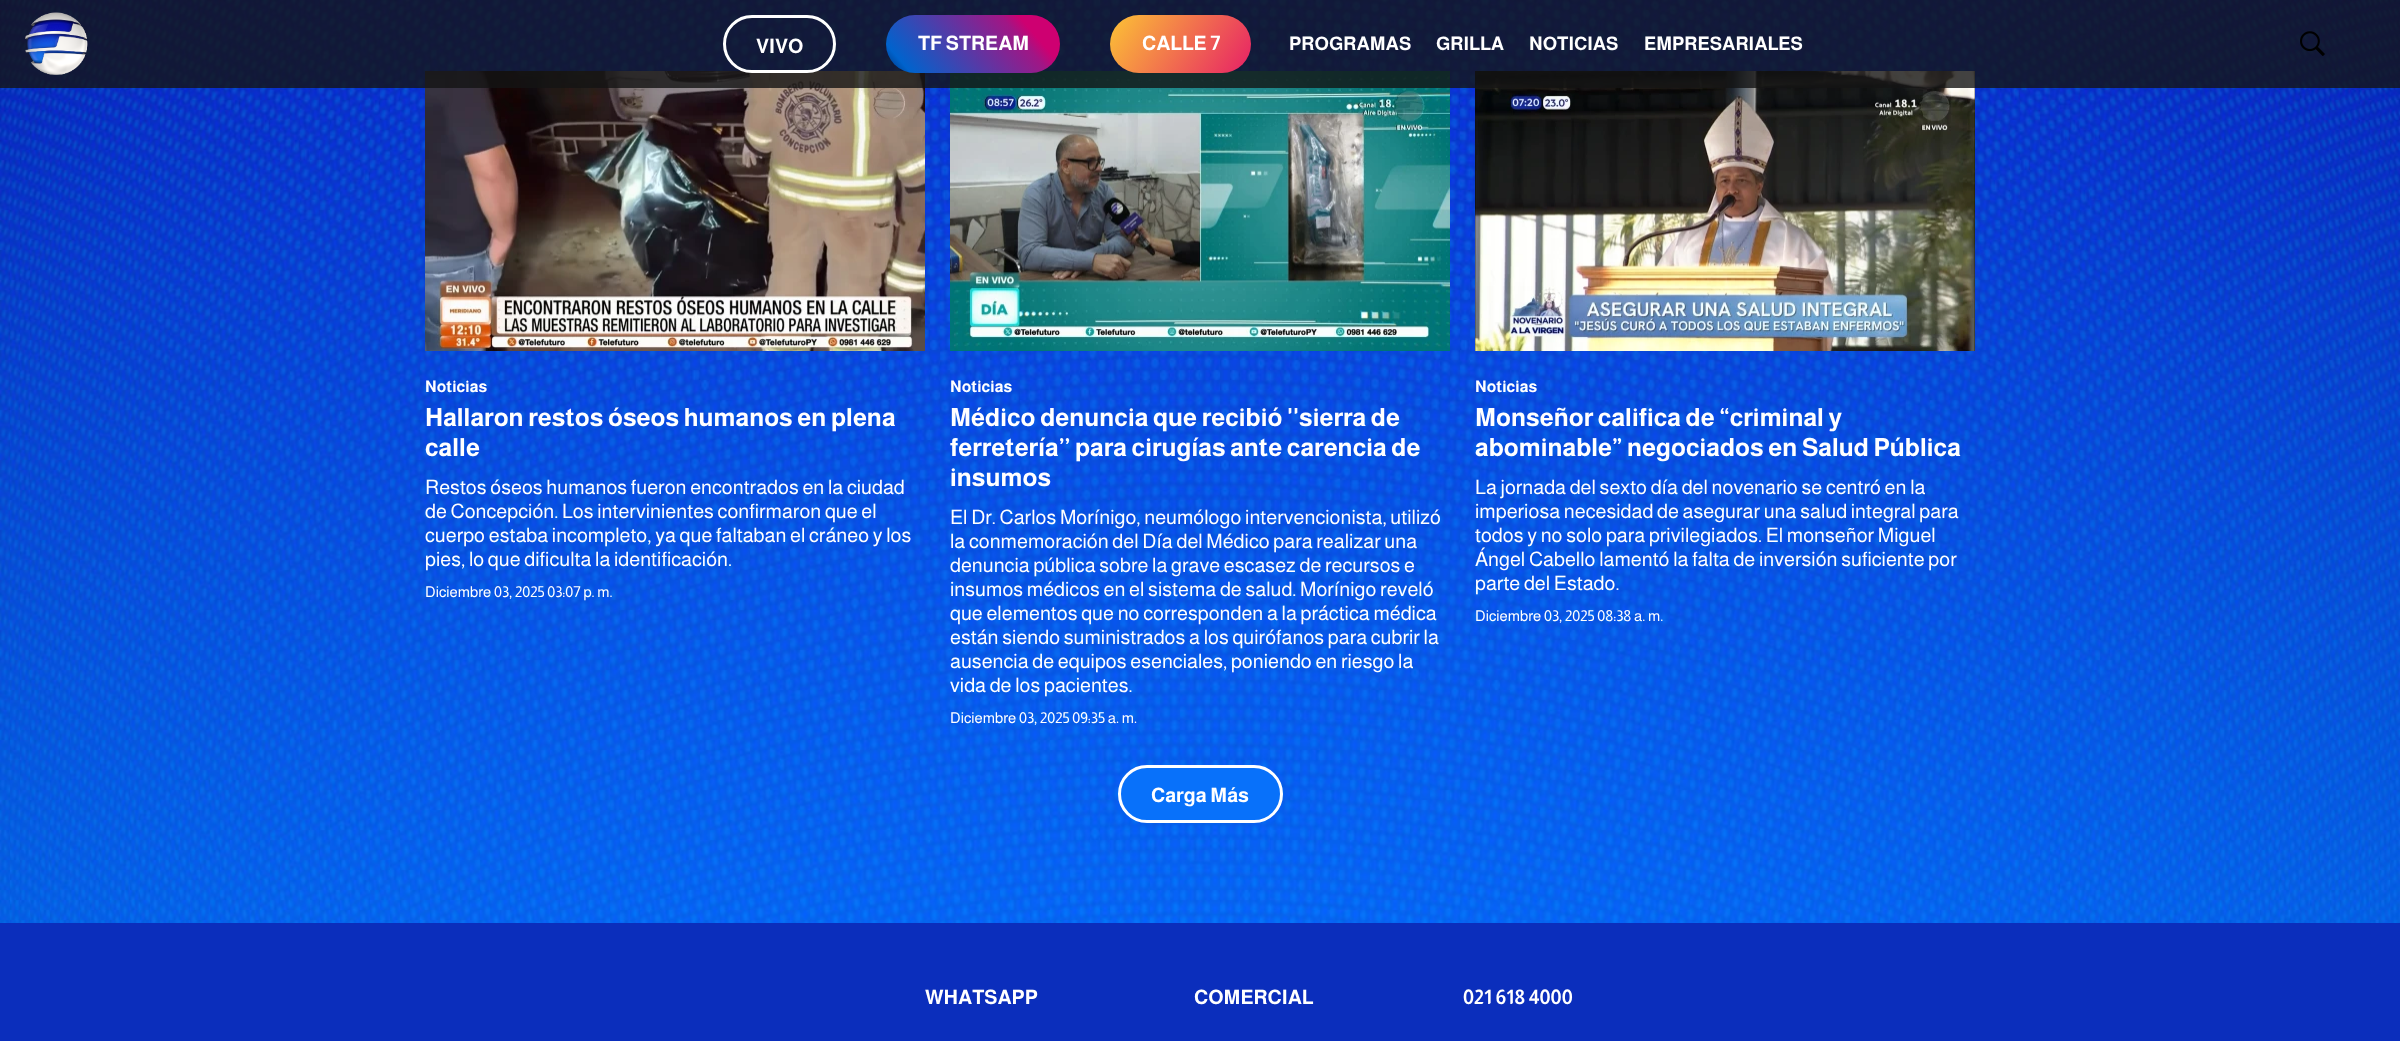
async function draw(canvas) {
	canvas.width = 2400;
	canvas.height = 1041;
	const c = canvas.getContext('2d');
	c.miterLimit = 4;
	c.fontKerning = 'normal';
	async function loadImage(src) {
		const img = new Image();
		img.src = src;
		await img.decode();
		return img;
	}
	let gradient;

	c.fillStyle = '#fff';
	c.fillRect(0, 0, 2400, 1041);
	c.drawImage(await loadImage('img1.png'), 0, 0, 2400, 923);
	c.drawImage(await loadImage('img4.png'), 425, 71, 500, 280);
	c.drawImage(await loadImage('img5.png'), 950, 71, 500, 280);
	c.drawImage(await loadImage('img6.png'), 1475, 71, 500, 280);
	c.fillStyle = '#141414cc';
	c.fillRect(0, 0, 2400, 88);
	c.drawImage(await loadImage('img2.png'), 25, 12, 63, 63);
	c.beginPath();
	c.roundRect(724.5, 16.5, 110, 55, 27.5);
	c.strokeStyle = '#fff';
	c.lineWidth = 3;
	c.stroke();
	c.font = 'bold 20px Almarai';
	c.fillStyle = '#fff';
	c.fillText('VIVO', 756, 53);
	gradient = c.createLinearGradient(909, 99, 1037, -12);
	gradient.addColorStop(0.05, '#00469c');
	gradient.addColorStop(0.11, '#0063cd');
	gradient.addColorStop(0.73, '#a11685');
	gradient.addColorStop(0.81, '#ce0071');
	c.fillStyle = gradient;
	c.beginPath();
	c.roundRect(886, 15, 174, 58, 29);
	c.fill();
	c.fillStyle = '#fff';
	c.fillText('TF STREAM', 918, 50);
	gradient = c.createLinearGradient(1242, 85, 1119, 2);
	gradient.addColorStop(0, '#e72166');
	gradient.addColorStop(1, '#fcc335');
	c.fillStyle = gradient;
	c.beginPath();
	c.roundRect(1110, 15, 141, 58, 29);
	c.fill();
	c.fillStyle = '#fff';
	c.fillText('CALLE 7', 1142, 50);
	c.font = 'bold 18.75px Almarai';
	for (const [text, x, y] of [
		['PROGRAMAS', 1289, 50],
		['GRILLA', 1436, 50],
		['NOTICIAS', 1529, 50],
		['EMPRESARIALES', 1644, 50],
	]) {
		c.fillText(text, x, y);
	}
	c.drawImage(await loadImage('img3.png'), 2300, 31, 25, 25);
	c.font = 'bold 16px Almarai';
	c.fillText('Noticias', 425, 392);
	c.font = 'bold 25px Almarai';
	c.fillText('Hallaron restos óseos humanos en plena', 425, 426);
	c.fillText('calle', 425, 456);
	c.font = '20px Almarai';
	for (const [text, x, y] of [
		['Restos óseos humanos fueron encontrados en la ciudad', 425, 494],
		['de Concepción. Los intervinientes confirmaron que el', 425, 518],
		['cuerpo estaba incompleto, ya que faltaban el cráneo y los', 425, 542],
		['pies, lo que dificulta la identificación.', 425, 566],
	]) {
		c.fillText(text, x, y);
	}
	c.font = '15px Almarai';
	c.fillText('Diciembre 03, 2025 03:07 p. m.', 425, 597);
	c.font = 'bold 16px Almarai';
	c.fillText('Noticias', 950, 392);
	c.font = 'bold 25px Almarai';
	for (const [text, x, y] of [
		['Médico denuncia que recibió \'\'sierra de', 950, 426],
		['ferretería’’ para cirugías ante carencia de', 950, 456],
		['insumos', 950, 486],
	]) {
		c.fillText(text, x, y);
	}
	c.font = '20px Almarai';
	for (const [text, x, y] of [
		['El Dr. Carlos Morínigo, neumólogo intervencionista, utilizó', 950, 524],
		['la conmemoración del Día del Médico para realizar una', 950, 548],
		['denuncia pública sobre la grave escasez de recursos e', 950, 572],
		['insumos médicos en el sistema de salud. Morínigo reveló', 950, 596],
		['que elementos que no corresponden a la práctica médica', 950, 620],
		['están siendo suministrados a los quirófanos para cubrir la', 950, 644],
		['ausencia de equipos esenciales, poniendo en riesgo la', 950, 668],
		['vida de los pacientes.', 950, 692],
	]) {
		c.fillText(text, x, y);
	}
	c.font = '15px Almarai';
	c.fillText('Diciembre 03, 2025 09:35 a. m.', 950, 723);
	c.font = 'bold 16px Almarai';
	c.fillText('Noticias', 1475, 392);
	c.font = 'bold 25px Almarai';
	c.fillText('Monseñor califica de “criminal y', 1475, 426);
	c.fillText('abominable” negociados en Salud Pública', 1475, 456);
	c.font = '20px Almarai';
	for (const [text, x, y] of [
		['La jornada del sexto día del novenario se centró en la', 1475, 494],
		['imperiosa necesidad de asegurar una salud integral para', 1475, 518],
		['todos y no solo para privilegiados. El monseñor Miguel', 1475, 542],
		['Ángel Cabello lamentó la falta de inversión suficiente por', 1475, 566],
		['parte del Estado.', 1475, 590],
	]) {
		c.fillText(text, x, y);
	}
	c.font = '15px Almarai';
	c.fillText('Diciembre 03, 2025 08:38 a. m.', 1475, 621);
	c.fillStyle = '#0871fa';
	c.beginPath();
	c.roundRect(1119.5, 766.5, 162, 55, 27.5);
	c.fill();
	c.stroke();
	c.font = 'bold 20px Almarai';
	c.fillStyle = '#fff';
	c.fillText('Carga Más', 1151, 802);
	c.fillStyle = '#0b2ebc';
	c.fillRect(0, 923, 2400, 118);
	c.fillStyle = '#fff';
	for (const [text, x, y] of [
		['WHATSAPP', 925, 1004],
		['COMERCIAL', 1194, 1004],
		['021 618 4000', 1463, 1004],
	]) {
		c.fillText(text, x, y);
	}
}

draw(document.querySelector('canvas'));
